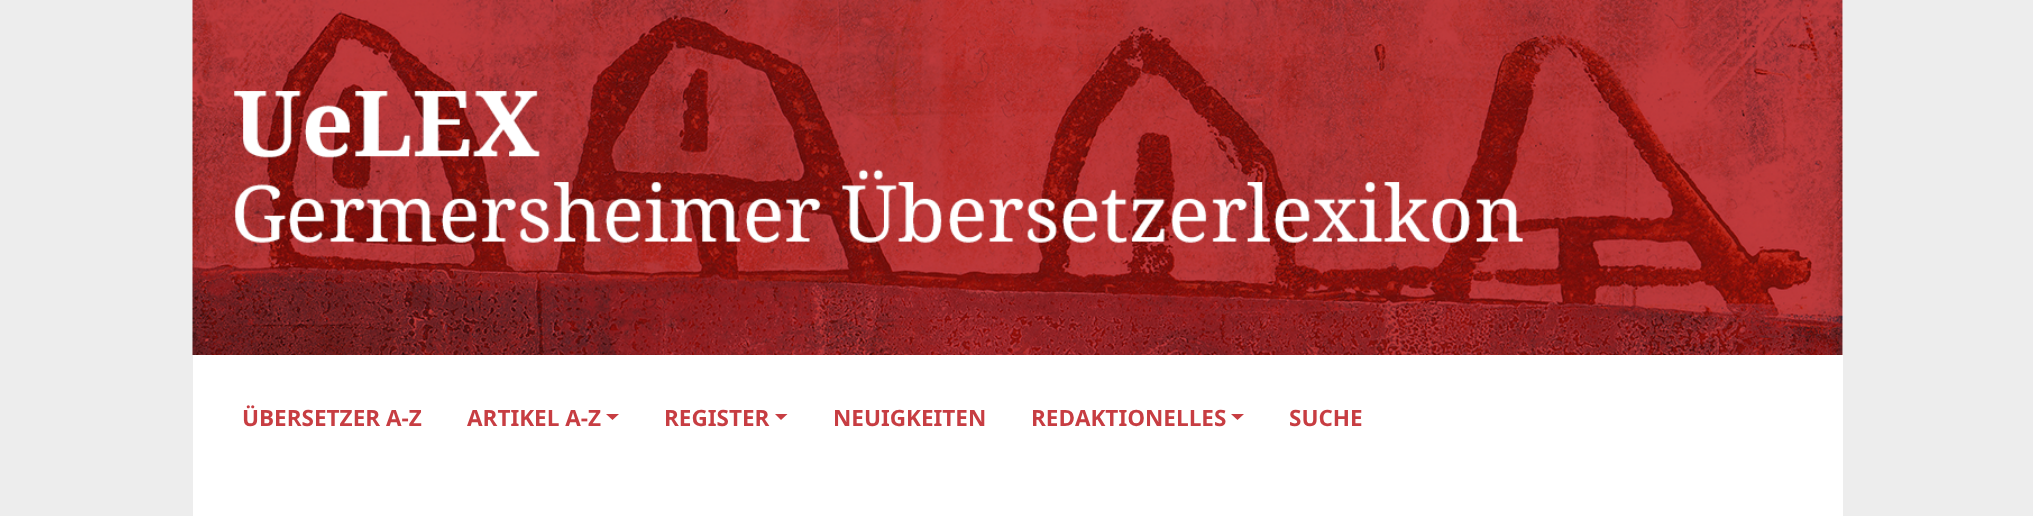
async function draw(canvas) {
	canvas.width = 2033;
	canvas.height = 516;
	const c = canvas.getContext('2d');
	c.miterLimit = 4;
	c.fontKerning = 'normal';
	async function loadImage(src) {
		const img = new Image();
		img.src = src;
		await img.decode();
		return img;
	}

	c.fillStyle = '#ededed';
	c.fillRect(0, 0, 2033, 516);
	c.fillStyle = '#fff';
	c.fillRect(193, 0, 1650, 516);
	c.drawImage(await loadImage('img1.png'), 192, 0, 1651, 355);
	c.font = 'bold 22.5px Noto Sans';
	c.fillStyle = '#c73d42';
	c.fillText('ÜBERSETZER A-Z', 242, 426);
	c.fillText('ARTIKEL A-Z', 467, 426);
	c.beginPath();
	c.moveTo(606, 414);
	c.lineTo(619, 414);
	c.lineTo(612.5, 420);
	c.closePath();
	c.fill();
	c.fillText('REGISTER', 664, 426);
	c.beginPath();
	c.moveTo(775, 414);
	c.lineTo(787.5, 414);
	c.lineTo(781, 420);
	c.closePath();
	c.fill();
	c.fillText('NEUIGKEITEN', 833, 426);
	c.fillText('REDAKTIONELLES', 1031, 426);
	c.beginPath();
	c.moveTo(1231, 414);
	c.lineTo(1244, 414);
	c.lineTo(1237.5, 420);
	c.closePath();
	c.fill();
	c.fillText('SUCHE', 1289, 426);
}

draw(document.querySelector('canvas'));
